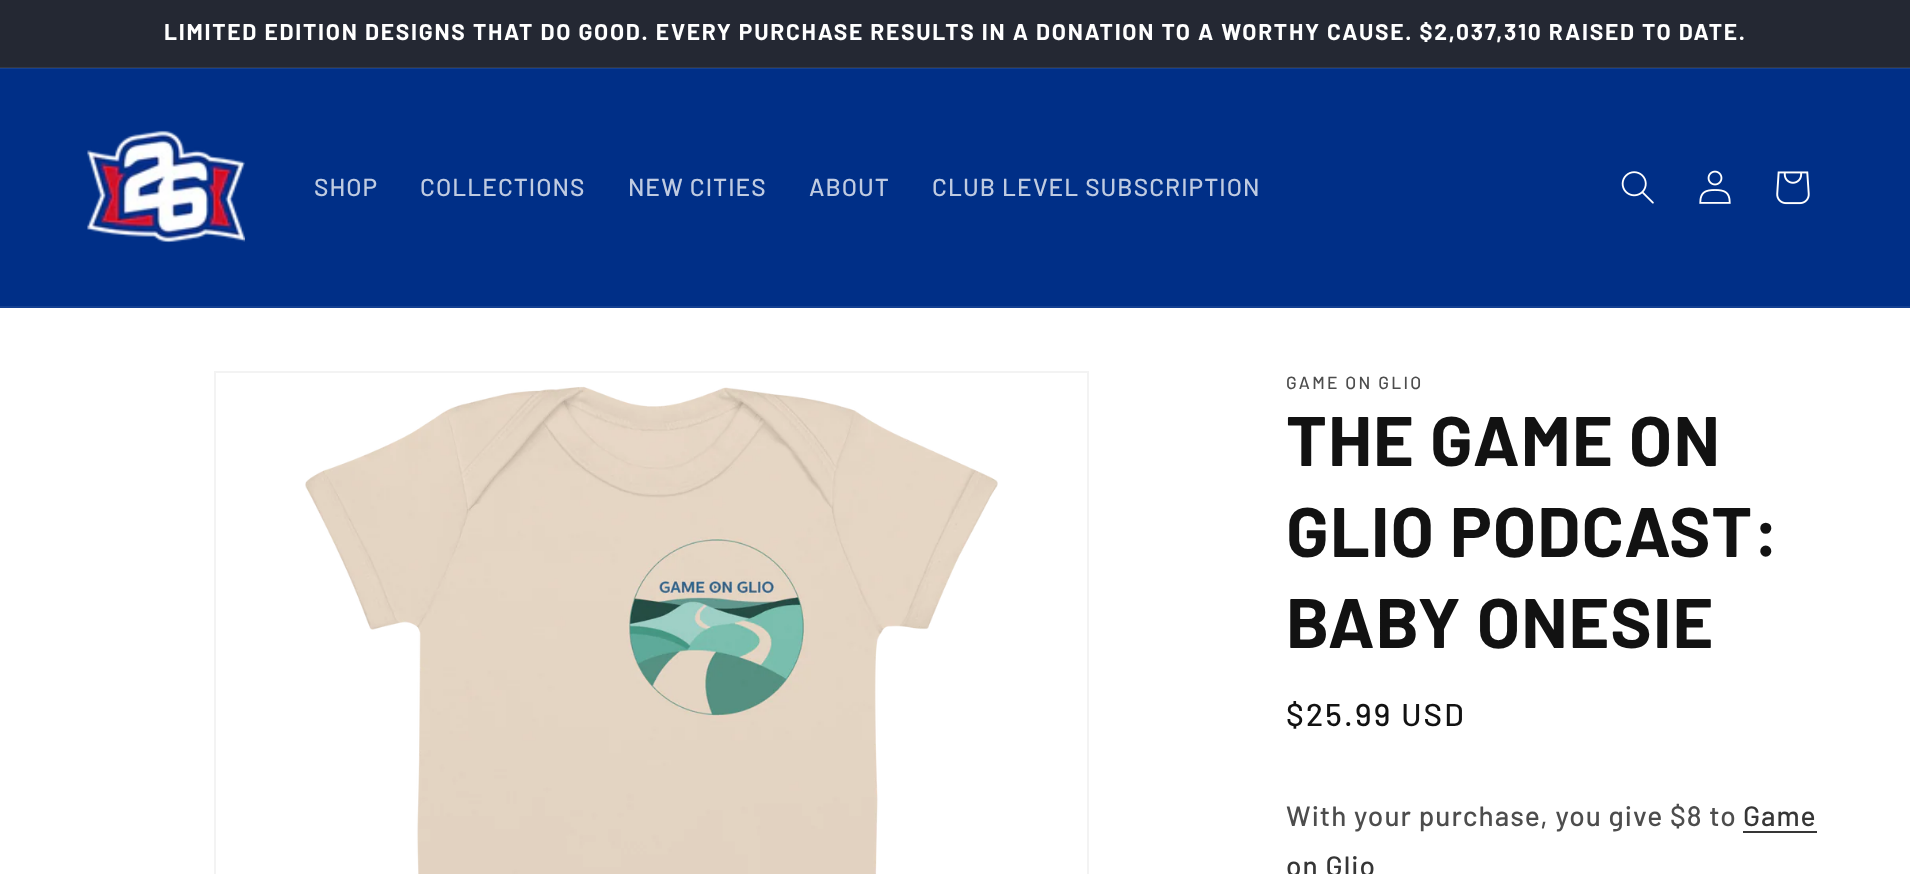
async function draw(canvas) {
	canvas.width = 1910;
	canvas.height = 874;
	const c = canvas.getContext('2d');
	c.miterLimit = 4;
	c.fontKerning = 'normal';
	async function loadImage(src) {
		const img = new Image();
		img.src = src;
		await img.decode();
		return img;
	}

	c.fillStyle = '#fff';
	c.fillRect(0, 0, 1910, 874);
	c.fillStyle = '#242833';
	c.fillRect(0, 0, 1910, 67);
	c.fillStyle = '#363943';
	c.fillRect(0, 67, 1910, 1);
	c.letterSpacing = '1.75px';
	c.font = 'bold 22.75px Barlow';
	c.fillStyle = '#fff';
	c.fillText('LIMITED EDITION DESIGNS THAT DO GOOD. EVERY PURCHASE RESULTS IN A DONATION TO A WORTHY CAUSE. $2,037,310 RAISED TO DATE.', 164, 40);
	for (const [x, y, w, h, color] of [
		[0, 69, 1910, 237, '#002f87'],
		[0, 68, 1910, 1, '#144091'],
		[0, 306, 1910, 2, '#144091'],
	]) {
		c.fillStyle = color;
		c.fillRect(x, y, w, h);
	}
	c.drawImage(await loadImage('img1.png'), 87, 130, 158, 113);
	c.letterSpacing = '1.05px';
	c.font = '500 24.5px Barlow';
	c.fillStyle = '#bfcbe1';
	for (const [text, x, y] of [
		['SHOP', 314, 196],
		['COLLECTIONS', 420, 196],
		['NEW CITIES', 628, 196],
		['ABOUT', 809, 196],
		['CLUB LEVEL SUBSCRIPTION', 932, 196],
	]) {
		c.fillText(text, x, y);
	}
	c.drawImage(await loadImage('img2.png'), 1621, 171, 33, 33);
	c.drawImage(await loadImage('img3.png'), 1699, 170, 32, 34);
	c.drawImage(await loadImage('img4.png'), 1776, 171, 34, 34);
	c.strokeStyle = '#f3f3f3';
	c.lineWidth = 2;
	c.strokeRect(215, 372, 873, 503);
	c.drawImage(await loadImage('img5.png'), 305, 386, 693, 488);
	c.letterSpacing = '2.25px';
	c.font = '500 17.5px Barlow';
	c.fillStyle = '#4d4d4d';
	c.fillText('GAME ON GLIO', 1286, 389);
	c.letterSpacing = '1.05px';
	c.font = 'bold 70px Barlow';
	c.fillStyle = '#121212';
	for (const [text, x, y] of [
		['THE GAME ON', 1286, 466],
		['GLIO PODCAST:', 1286, 557],
		['BABY ONESIE', 1286, 648],
	]) {
		c.fillText(text, x, y);
	}
	c.letterSpacing = '2.25px';
	c.font = '500 31.5px Barlow';
	c.fillText('$25.99 USD', 1286, 726);
	c.letterSpacing = '1.05px';
	c.font = '500 28px Barlow';
	c.fillStyle = '#4d4d4d';
	c.fillText('With your purchase, you give $8 to', 1286, 826);
	c.fillStyle = '#363636';
	c.fillText('Game', 1743, 826);
	c.fillRect(1743, 831, 74, 2);
	c.fillText('on Glio', 1286, 876);
}

draw(document.querySelector('canvas'));
